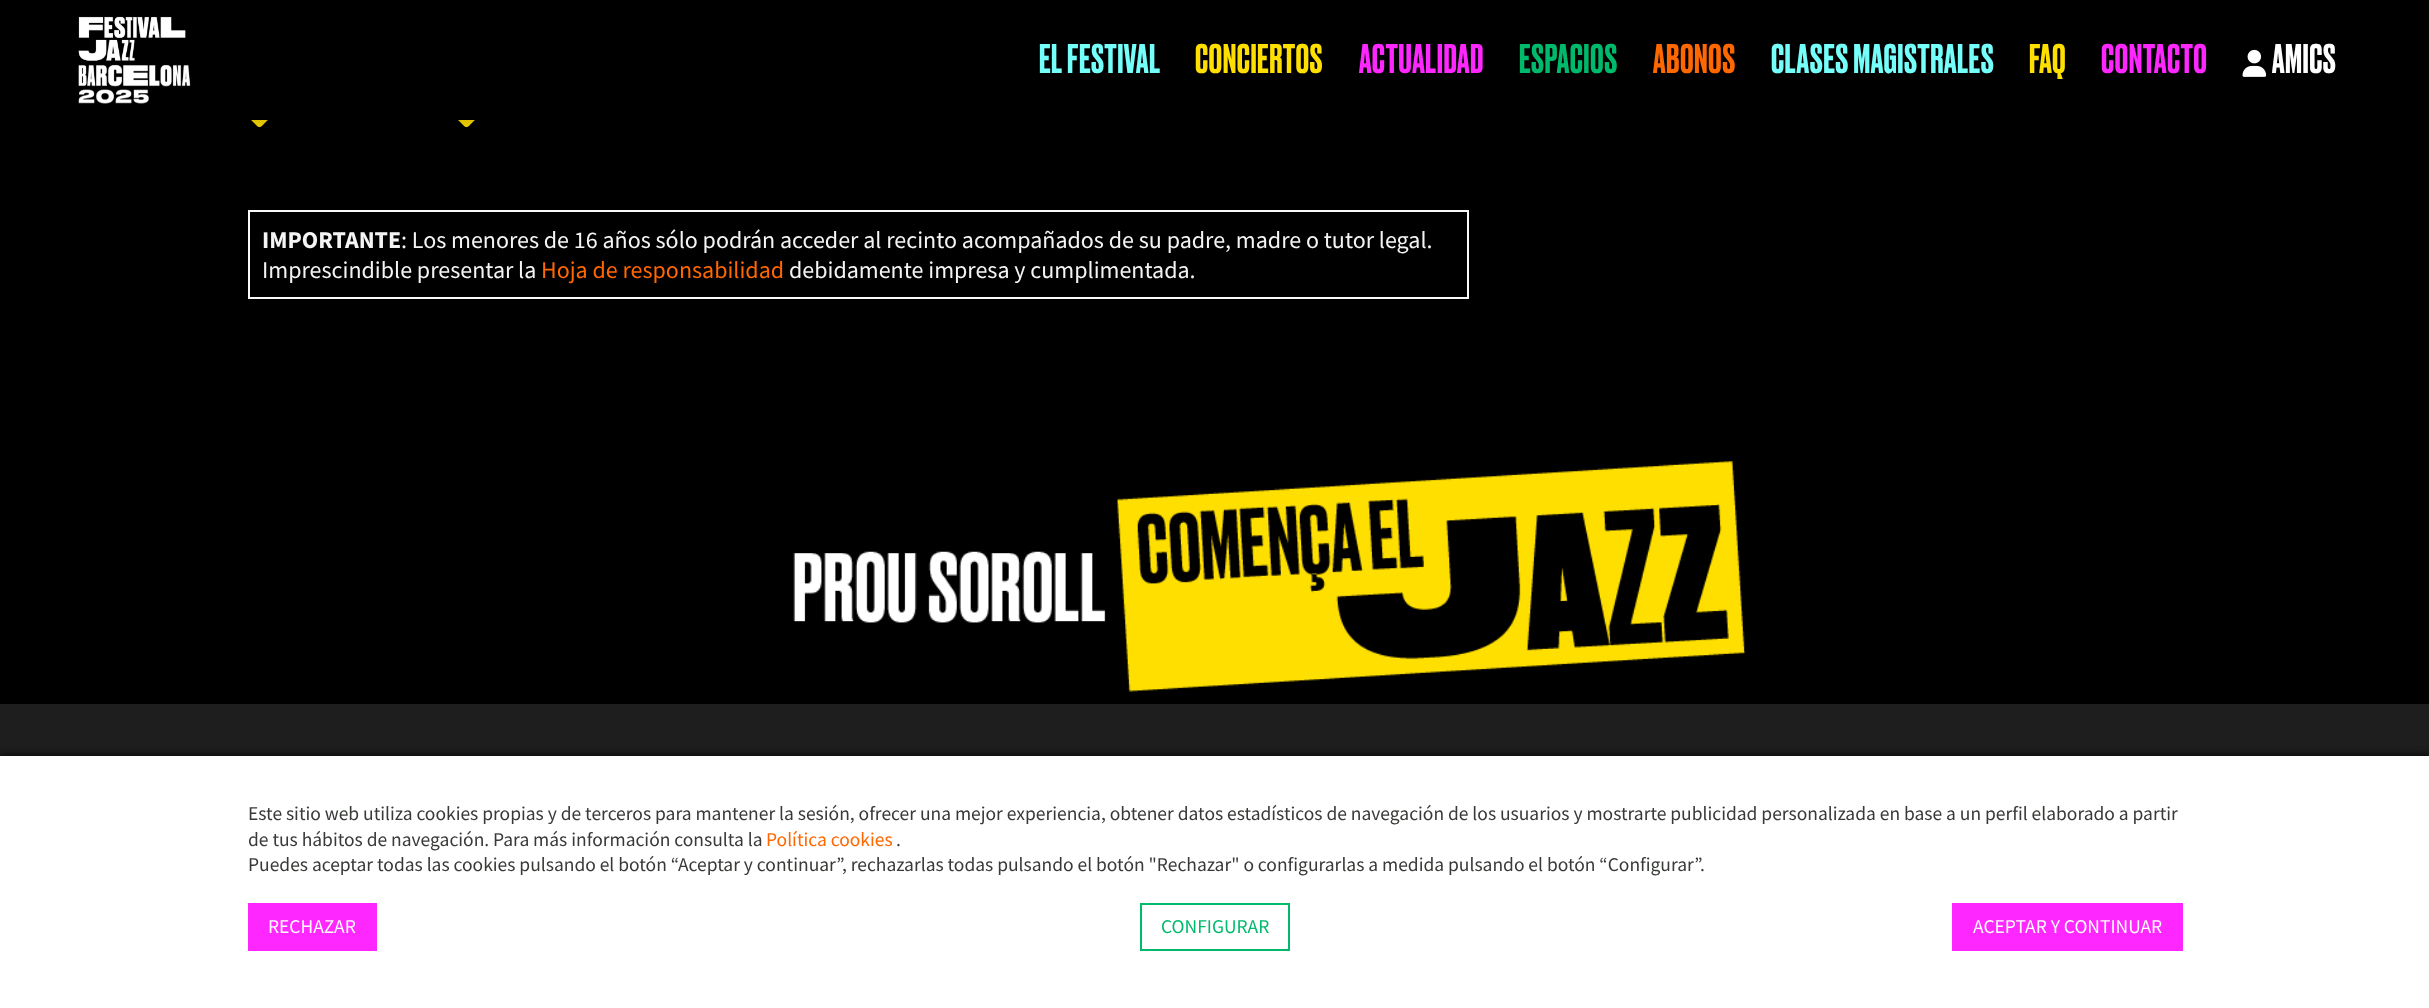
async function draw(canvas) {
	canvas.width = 2429;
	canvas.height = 1008;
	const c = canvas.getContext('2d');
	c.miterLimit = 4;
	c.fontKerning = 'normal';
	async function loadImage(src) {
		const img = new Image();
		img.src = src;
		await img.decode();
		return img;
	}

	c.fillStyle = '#000';
	c.fillRect(0, 0, 2429, 1008);
	c.drawImage(await loadImage('img3.png'), 251, 120, 17, 8);
	c.drawImage(await loadImage('img3.png'), 458, 120, 17, 8);
	c.fillStyle = '#00000026';
	c.filter = 'blur(7.5px)';
	c.beginPath();
	c.rect(0, 8, 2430, 120);
	c.fill();
	c.filter = 'none';
	c.drawImage(await loadImage('img1.png'), 78, 16, 113, 88);
	c.letterSpacing = '0.5px';
	c.font = '500 39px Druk';
	c.fillStyle = '#75fffb';
	c.fillText('EL FESTIVAL', 1039, 73);
	c.fillStyle = '#ffdf00';
	c.fillText('CONCIERTOS', 1195, 73);
	c.fillStyle = '#ff27ff';
	c.fillText('ACTUALIDAD', 1359, 73);
	c.fillStyle = '#00ba6c';
	c.fillText('ESPACIOS', 1519, 73);
	c.fillStyle = '#ff6700';
	c.fillText('ABONOS', 1653, 73);
	c.fillStyle = '#75fffb';
	c.fillText('CLASES MAGISTRALES', 1771, 73);
	c.fillStyle = '#ffdf00';
	c.fillText('FAQ', 2029, 73);
	c.fillStyle = '#ff27ff';
	c.fillText('CONTACTO', 2101, 73);
	c.drawImage(await loadImage('img2.png'), 2242, 49, 25, 28);
	c.fillStyle = '#fff';
	c.fillText('AMICS', 2272, 73);
	c.strokeStyle = '#f8f9fa';
	c.lineWidth = 2;
	c.strokeRect(249, 211, 1219, 87);
	c.letterSpacing = '0px';
	c.font = 'bold 24px Source Sans Pro';
	c.fillStyle = '#f4f4f4';
	c.fillText('IMPORTANTE', 262, 248);
	c.font = '24px Source Sans Pro';
	c.fillText(': Los menores de 16 años sólo podrán acceder al recinto acompañados de su padre, madre o tutor legal.', 401, 248);
	c.fillText('Imprescindible presentar la', 262, 278);
	c.fillStyle = '#ff6700';
	c.fillText('Hoja de responsabilidad', 541, 278);
	c.fillStyle = '#f4f4f4';
	c.fillText('debidamente impresa y cumplimentada.', 789, 278);
	c.drawImage(await loadImage('img4.png'), 793, 461, 953, 231);
	c.fillStyle = '#1e1e1e';
	c.fillRect(0, 704, 2429, 52);
	c.fillStyle = '#000';
	c.filter = 'blur(4px)';
	c.beginPath();
	c.rect(0, 756, 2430, 252);
	c.fill();
	c.filter = 'none';
	c.fillStyle = '#fff';
	c.fillRect(0, 756, 2429, 252);
	c.font = '19.5px Source Sans Pro';
	c.fillStyle = '#373a36';
	c.fillText('Este sitio web utiliza cookies propias y de terceros para mantener la sesión, ofrecer una mejor experiencia, obtener datos estadísticos de navegación de los usuarios y mostrarte publicidad personalizada en base a un perfil elaborado a partir', 248, 820);
	c.fillText('de tus hábitos de navegación. Para más información consulta la', 248, 846);
	c.fillStyle = '#ff6700';
	c.fillText('Política cookies', 766, 846);
	c.fillStyle = '#373a36';
	c.fillText('.', 896, 846);
	c.fillText('Puedes aceptar todas las cookies pulsando el botón “Aceptar y continuar”, rechazarlas todas pulsando el botón "Rechazar" o configurarlas a medida pulsando el botón “Configurar”.', 248, 871);
	c.fillStyle = '#ff27ff';
	c.fillRect(248, 903, 129, 48);
	c.fillStyle = '#fff';
	c.fillText('RECHAZAR', 268, 933);
	c.strokeStyle = '#00ba6c';
	c.strokeRect(1141, 904, 148, 46);
	c.fillStyle = '#00ba6c';
	c.fillText('CONFIGURAR', 1161, 933);
	c.fillStyle = '#ff27ff';
	c.fillRect(1952, 903, 231, 48);
	c.fillStyle = '#fff';
	c.fillText('ACEPTAR Y CONTINUAR', 1973, 933);
}

draw(document.querySelector('canvas'));
